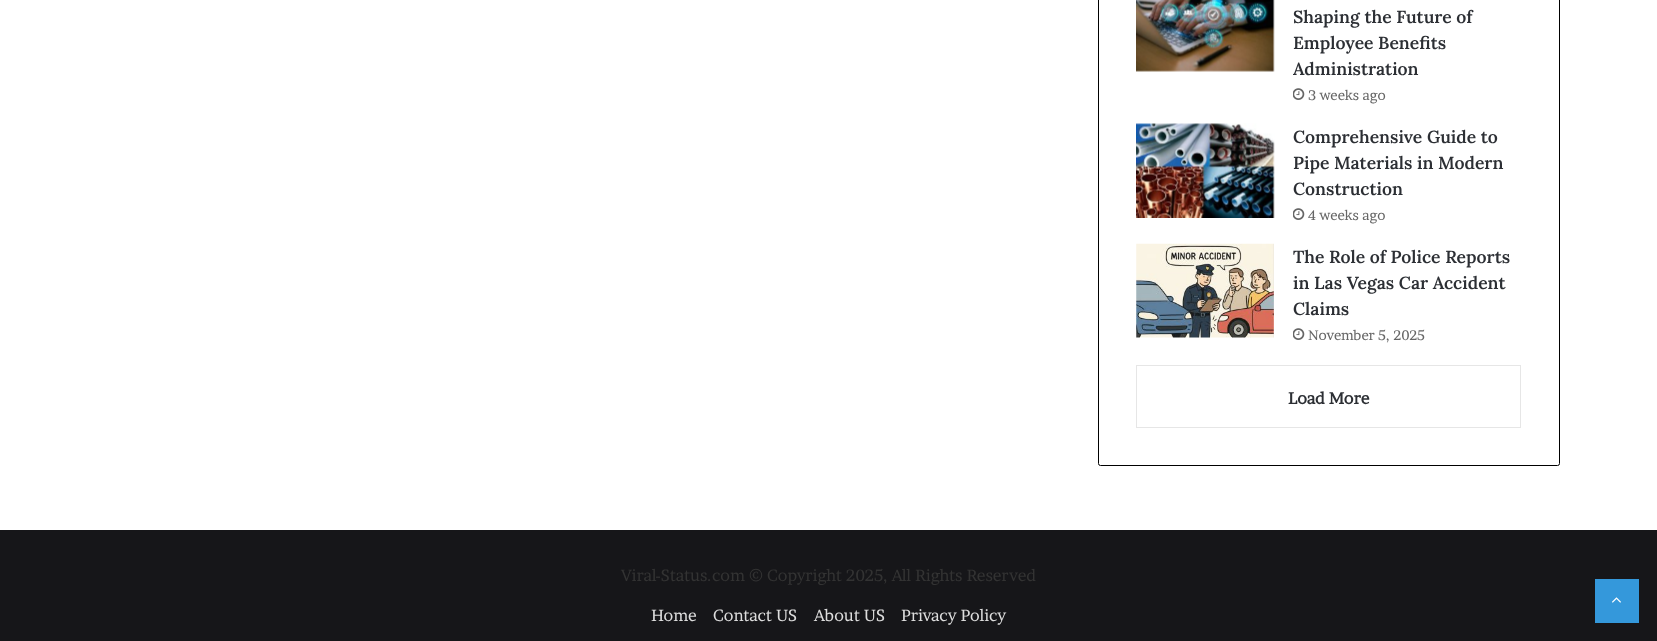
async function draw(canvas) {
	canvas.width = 1657;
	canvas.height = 641;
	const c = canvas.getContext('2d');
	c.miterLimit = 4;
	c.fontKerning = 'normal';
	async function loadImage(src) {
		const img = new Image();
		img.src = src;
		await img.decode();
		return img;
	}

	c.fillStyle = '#fff';
	c.fillRect(0, 0, 1657, 641);
	c.beginPath();
	c.roundRect(1098.5, -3.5, 461, 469, 2);
	c.strokeStyle = '#000';
	c.stroke();
	c.drawImage(await loadImage('img1.png'), 1136, 0, 139, 72);
	c.font = '600 17.5px Lora';
	c.fillStyle = '#2c2f34';
	for (const [text, x, y] of [
		['Shaping the Future of', 1293, 23],
		['Employee Benefits', 1293, 49],
		['Administration', 1293, 75],
	]) {
		c.fillText(text, x, y);
	}
	c.drawImage(await loadImage('img2.png'), 1293, 88, 12, 12);
	c.font = '13.75px Brawler';
	c.fillStyle = '#666';
	c.fillText('3 weeks ago', 1308, 100);
	c.drawImage(await loadImage('img3.png'), 1136, 123, 139, 95);
	c.font = '600 17.5px Lora';
	c.fillStyle = '#2c2f34';
	for (const [text, x, y] of [
		['Comprehensive Guide to', 1293, 143],
		['Pipe Materials in Modern', 1293, 169],
		['Construction', 1293, 195],
	]) {
		c.fillText(text, x, y);
	}
	c.drawImage(await loadImage('img2.png'), 1293, 208, 12, 12);
	c.font = '13.75px Brawler';
	c.fillStyle = '#666';
	c.fillText('4 weeks ago', 1308, 220);
	c.drawImage(await loadImage('img4.png'), 1136, 243, 138, 95);
	c.font = '600 17.5px Lora';
	c.fillStyle = '#2c2f34';
	for (const [text, x, y] of [
		['The Role of Police Reports', 1293, 263],
		['in Las Vegas Car Accident', 1293, 289],
		['Claims', 1293, 315],
	]) {
		c.fillText(text, x, y);
	}
	c.drawImage(await loadImage('img2.png'), 1293, 328, 12, 12);
	c.font = '13.75px Brawler';
	c.fillStyle = '#666';
	c.fillText('November 5, 2025', 1308, 340);
	c.strokeStyle = '#e6e6e6';
	c.strokeRect(1136.5, 365.5, 384, 62);
	c.font = 'bold 16.25px Brawler';
	c.fillStyle = '#2c2f34';
	c.fillText('Load More', 1288, 404);
	c.fillStyle = '#161619';
	c.fillRect(0, 530, 1657, 111);
	c.font = '16.25px Brawler';
	c.fillStyle = '#333';
	c.fillText('Viral-Status.com © Copyright 2025, All Rights Reserved', 621, 581);
	c.fillStyle = '#ddd';
	for (const [text, x, y] of [
		['Home', 651, 621],
		['Contact US', 713, 621],
		['About US', 814, 621],
		['Privacy Policy', 901, 621],
	]) {
		c.fillText(text, x, y);
	}
	c.fillStyle = '#3498db';
	c.fillRect(1595, 579, 44, 44);
	c.drawImage(await loadImage('img5.png'), 1612, 597, 9, 6);
}

draw(document.querySelector('canvas'));
